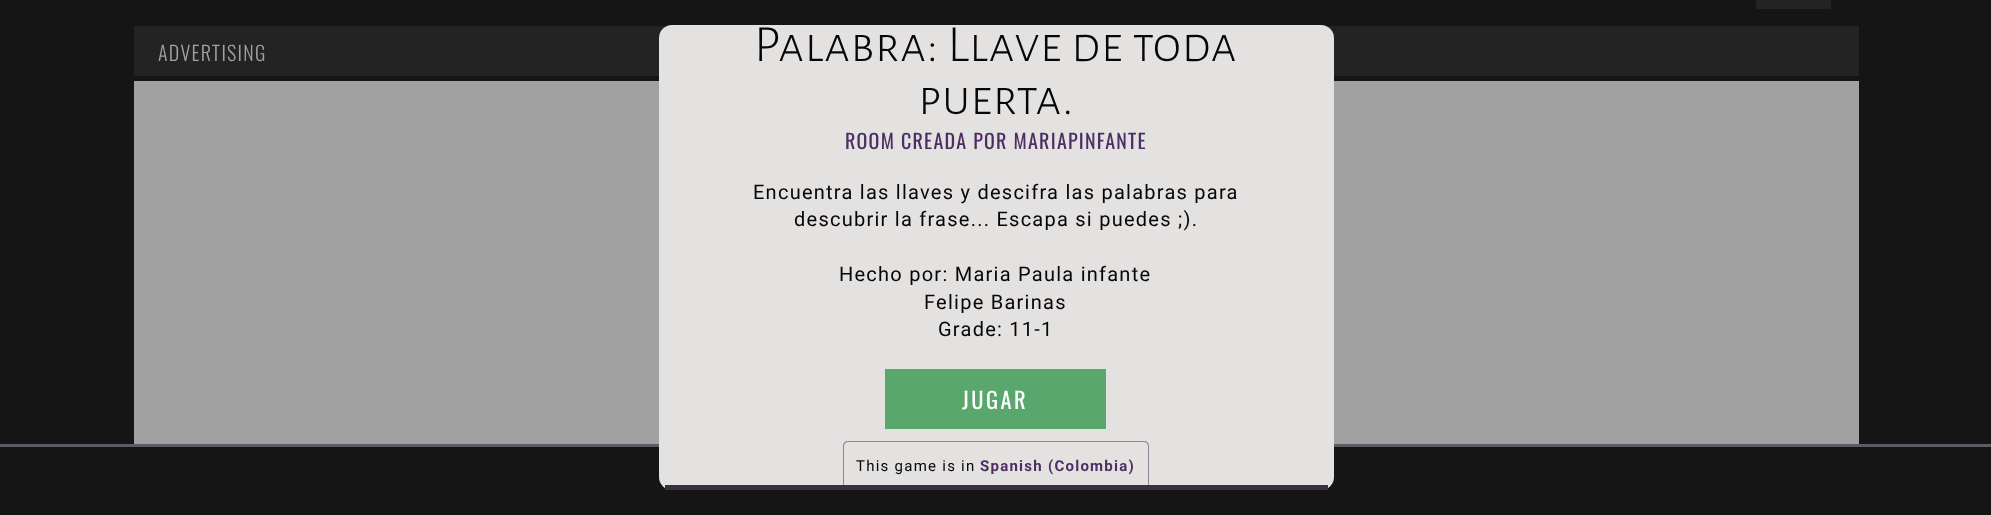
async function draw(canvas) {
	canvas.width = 1991;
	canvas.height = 515;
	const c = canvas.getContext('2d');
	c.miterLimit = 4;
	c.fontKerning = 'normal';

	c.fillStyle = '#151515';
	c.fillRect(0, 0, 1991, 515);
	for (const [x, y, w, h, color] of [
		[1756, 0, 75, 9, '#232325'],
		[134, 81, 1725, 363, '#a1a1a1'],
		[134, 26, 1725, 50, '#232323'],
	]) {
		c.fillStyle = color;
		c.fillRect(x, y, w, h);
	}
	c.letterSpacing = '1.25px';
	c.font = '300 20px Oswald';
	c.fillStyle = '#a1a1a1';
	c.fillText('ADVERTISING', 158, 61);
	c.fillStyle = '#5e5962';
	c.fillRect(0, 444, 1991, 3);
	c.fillStyle = '#e4e2e1';
	c.beginPath();
	c.roundRect(659, 25, 675, 465, 13);
	c.fill();
	c.fillStyle = '#3a3140';
	c.fillRect(665, 485, 663, 5);
	c.letterSpacing = '0px';
	c.font = '300 52.5px Alegreya Sans SC';
	c.fillStyle = '#070606';
	c.fillText('Palabra: Llave de toda', 754, 61);
	c.fillText('puerta.', 918, 114);
	c.letterSpacing = '1.25px';
	c.font = '20px Oswald';
	c.fillStyle = '#4e2d64';
	c.fillText('ROOM CREADA POR MARIAPINFANTE', 845, 149);
	c.font = '20px Roboto';
	c.fillStyle = '#070606';
	for (const [text, x, y] of [
		['Encuentra las llaves y descifra las palabras para', 753, 199],
		['descubrir la frase... Escapa si puedes ;).', 794, 226],
		['Hecho por: Maria Paula infante', 839, 281],
		['Felipe Barinas', 924, 309],
		['Grade: 11-1', 938, 336],
	]) {
		c.fillText(text, x, y);
	}
	c.fillStyle = '#5aa76e';
	c.fillRect(885, 369, 221, 60);
	c.letterSpacing = '2.5px';
	c.font = '22.5px Oswald';
	c.fillStyle = '#fff';
	c.fillText('JUGAR', 962, 409);
	c.fillStyle = '#8f8795';
	c.beginPath();
	c.moveTo(848, 441);
	c.bezierCurveTo(845, 441, 843, 443, 843, 446);
	c.lineTo(843, 485);
	c.lineTo(844, 485);
	c.lineTo(844, 446);
	c.bezierCurveTo(844, 444, 846, 442, 848, 442);
	c.lineTo(1144, 442);
	c.bezierCurveTo(1146, 442, 1148, 444, 1148, 446);
	c.lineTo(1148, 485);
	c.lineTo(1149, 485);
	c.lineTo(1149, 446);
	c.bezierCurveTo(1149, 443, 1147, 441, 1144, 441);
	c.closePath();
	c.fill();
	c.letterSpacing = '1.25px';
	c.font = '15px Roboto';
	c.fillStyle = '#070606';
	c.fillText('This game is in', 856, 471);
	c.font = 'bold 15px Roboto';
	c.fillStyle = '#4e2d64';
	c.fillText('Spanish (Colombia)', 980, 471);
}

draw(document.querySelector('canvas'));
